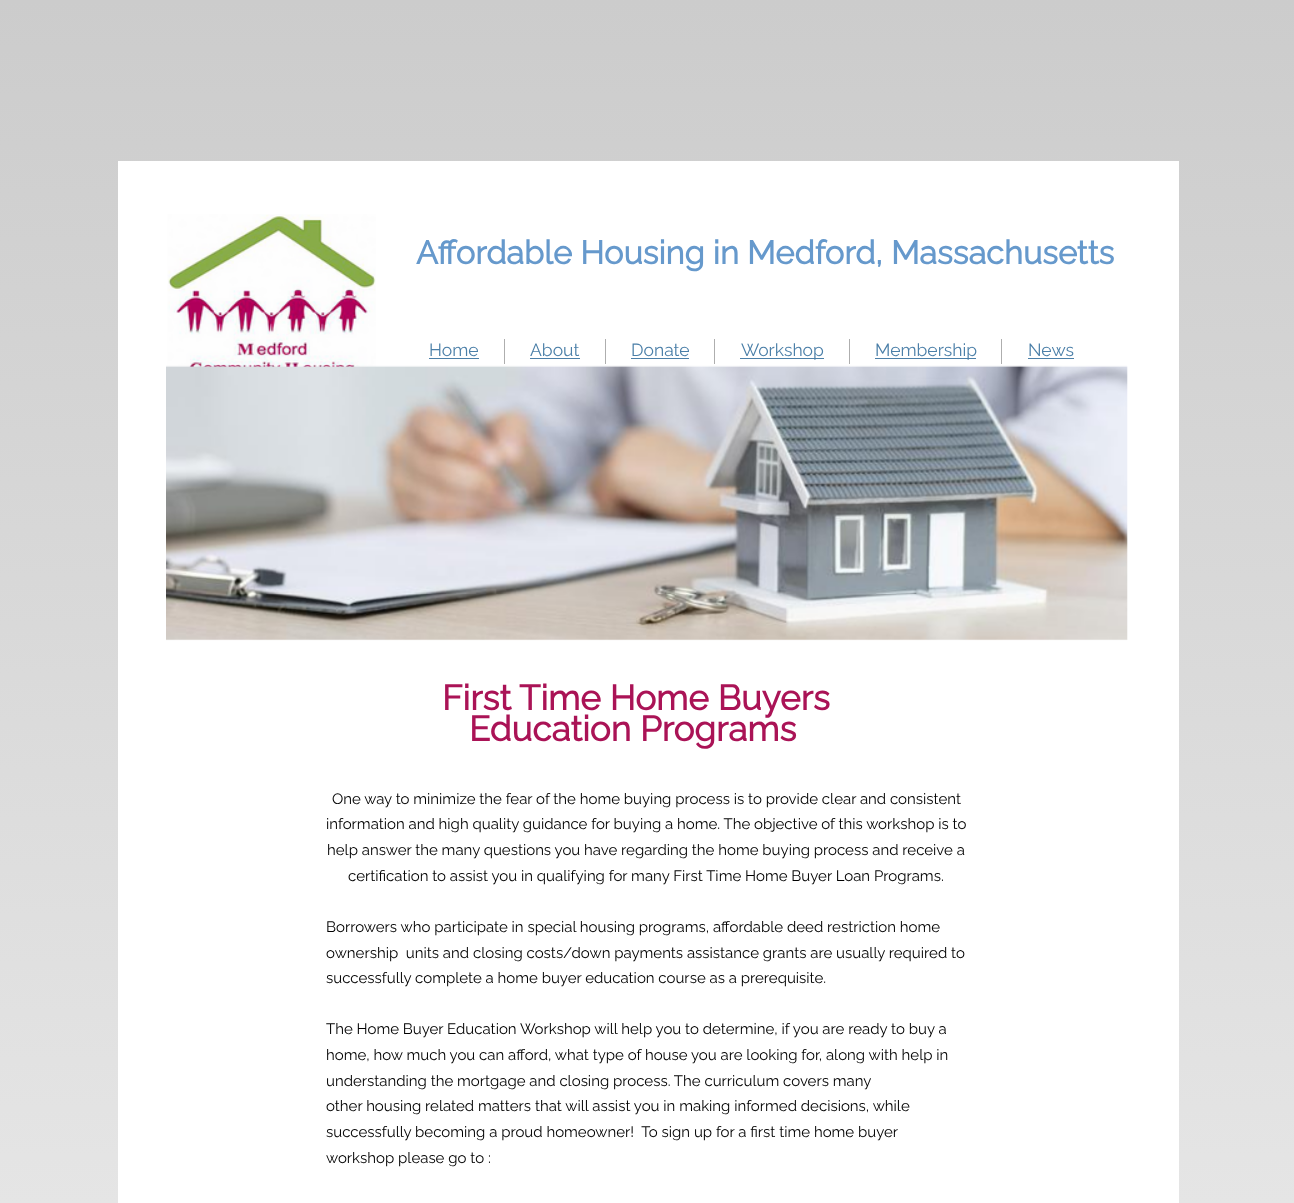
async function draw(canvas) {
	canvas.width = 1294;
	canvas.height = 1203;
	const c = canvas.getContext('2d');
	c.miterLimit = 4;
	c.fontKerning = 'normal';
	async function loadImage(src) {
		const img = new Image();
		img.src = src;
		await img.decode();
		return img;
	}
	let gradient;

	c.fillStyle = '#fff';
	c.fillRect(0, 0, 1294, 1203);
	gradient = c.createLinearGradient(647, 0, 648, 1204);
	gradient.addColorStop(0, '#ccc');
	gradient.addColorStop(1, '#e5e5e5');
	c.fillStyle = gradient;
	c.fillRect(0, 0, 1294, 1203);
	c.fillStyle = '#fff';
	c.fillRect(118, 161, 1061, 1042);
	c.drawImage(await loadImage('img1.png'), 167, 214, 209, 153);
	c.font = 'bold 32.5px Raleway';
	c.fillStyle = '#69c';
	c.fillText('Affordable Housing in Medford, Massachusetts', 416, 264);
	c.fillStyle = '#aeaeae';
	c.fillRect(504, 339, 1, 25);
	c.font = '100 17.5px Raleway';
	c.fillStyle = '#4b7fa8';
	c.fillText('Home', 429, 356);
	c.fillRect(429, 358, 50, 1);
	c.fillStyle = '#aeaeae';
	c.fillRect(605, 339, 1, 25);
	c.fillStyle = '#4b7fa8';
	c.fillText('About', 530, 356);
	c.fillRect(530, 358, 50, 1);
	c.fillStyle = '#aeaeae';
	c.fillRect(714, 339, 1, 25);
	c.fillStyle = '#4b7fa8';
	c.fillText('Donate', 631, 356);
	for (const [x, y, w, h, color] of [
		[631, 358, 58, 1, '#4b7fa8'],
		[849, 339, 1, 25, '#aeaeae'],
		[740, 358, 84, 1, '#4b7fa8'],
	]) {
		c.fillStyle = color;
		c.fillRect(x, y, w, h);
	}
	c.fillText('Workshop', 741, 356);
	c.fillStyle = '#aeaeae';
	c.fillRect(1001, 339, 1, 25);
	c.fillStyle = '#4b7fa8';
	c.fillRect(875, 358, 101, 1);
	c.fillText('Membership', 875, 356);
	c.fillText('News', 1028, 356);
	c.fillRect(1028, 358, 46, 1);
	c.drawImage(await loadImage('img2.png'), 166, 365, 962, 276);
	c.font = 'bold 35px Raleway';
	c.fillStyle = '#aa1356';
	c.fillText('First Time Home Buyers', 442, 710);
	c.fillText('Education Programs', 469, 741);
	c.font = '100 15px Raleway';
	c.fillStyle = '#000';
	for (const [text, x, y] of [
		['One way to minimize the fear of the home buying process is to provide clear and consistent', 332, 804],
		['information and high quality guidance for buying a home. The objective of this workshop is to', 326, 829],
		['help answer the many questions you have regarding the home buying process and receive a', 327, 855],
		['certification to assist you in qualifying for many First Time Home Buyer Loan Programs.', 348, 881],
		['Borrowers who participate in special housing programs, affordable deed restriction home', 326, 932],
		['ownership  units and closing costs/down payments assistance grants are usually required to', 326, 958],
		['successfully complete a home buyer education course as a prerequisite.', 326, 983],
		['The Home Buyer Education Workshop will help you to determine, if you are ready to buy a', 326, 1034],
		['home, how much you can afford, what type of house you are looking for, along with help in', 326, 1060],
		['understanding the mortgage and closing process. The curriculum covers many', 326, 1086],
		['other housing related matters that will assist you in making informed decisions, while', 326, 1111],
		['successfully becoming a proud homeowner!  To sign up for a first time home buyer', 326, 1137],
		['workshop please go to :', 326, 1163],
	]) {
		c.fillText(text, x, y);
	}
}

draw(document.querySelector('canvas'));
